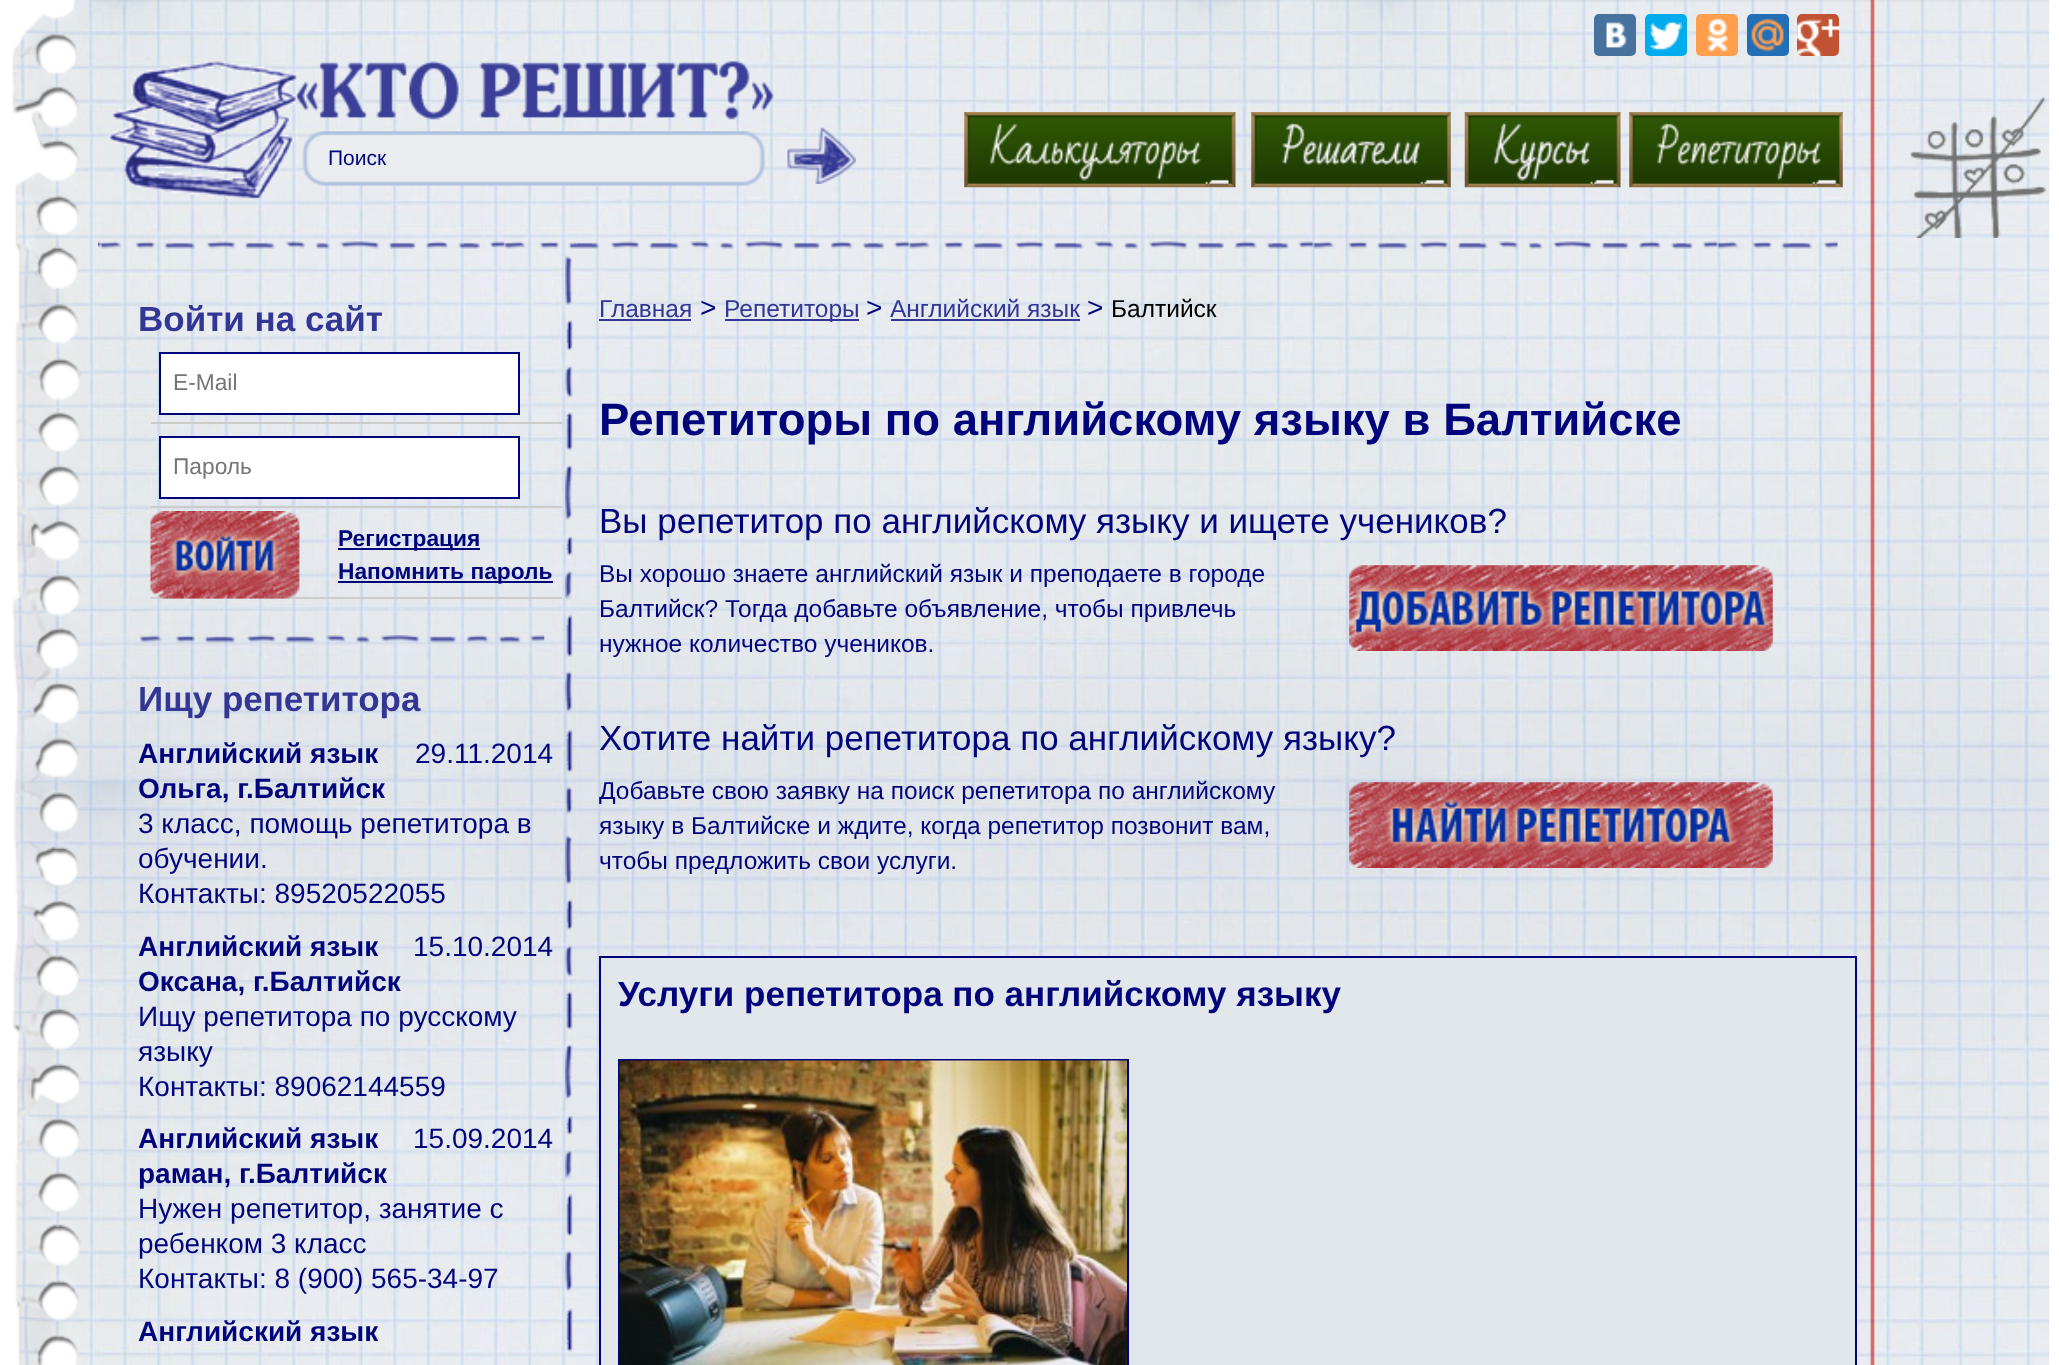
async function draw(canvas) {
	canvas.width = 2059;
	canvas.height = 1365;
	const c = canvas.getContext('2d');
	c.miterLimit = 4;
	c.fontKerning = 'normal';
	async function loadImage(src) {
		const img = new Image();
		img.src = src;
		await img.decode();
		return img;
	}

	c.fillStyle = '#fff';
	c.fillRect(0, 0, 2059, 1365);
	c.drawImage(await loadImage('img1.png'), 89, 0, 1961, 1365);
	c.drawImage(await loadImage('img2.png'), 12, 0, 78, 1365);
	c.drawImage(await loadImage('img3.png'), 1910, 96, 137, 142);
	c.drawImage(await loadImage('img4.png'), 108, 60, 666, 139);
	c.drawImage(await loadImage('img5.png'), 302, 131, 463, 55);
	c.font = '21px Liberation Sans';
	c.fillStyle = '#01047b';
	c.fillText('Поиск', 328, 165);
	c.drawImage(await loadImage('img6.png'), 787, 127, 69, 57);
	c.fillStyle = '#48729e';
	c.beginPath();
	c.roundRect(1594, 14, 42, 42, 5);
	c.fill();
	c.drawImage(await loadImage('img7.png'), 1606, 22, 21, 26);
	c.fillStyle = '#00aced';
	c.beginPath();
	c.roundRect(1645, 14, 42, 42, 5);
	c.fill();
	c.drawImage(await loadImage('img8.png'), 1649, 22, 34, 28);
	c.fillStyle = '#ff9f4d';
	c.beginPath();
	c.roundRect(1696, 14, 42, 42, 5);
	c.fill();
	c.drawImage(await loadImage('img9.png'), 1707, 18, 21, 34);
	c.fillStyle = '#226eb7';
	c.beginPath();
	c.roundRect(1747, 14, 42, 42, 5);
	c.fill();
	c.drawImage(await loadImage('img10.png'), 1751, 18, 33, 34);
	c.fillStyle = '#c25234';
	c.beginPath();
	c.roundRect(1797, 14, 42, 42, 5);
	c.fill();
	c.drawImage(await loadImage('img11.png'), 1797, 18, 43, 38);
	c.drawImage(await loadImage('img12.png'), 964, 112, 272, 76);
	c.drawImage(await loadImage('img13.png'), 1251, 112, 200, 76);
	c.drawImage(await loadImage('img14.png'), 1464, 112, 157, 76);
	c.drawImage(await loadImage('img15.png'), 1629, 112, 214, 76);
	c.drawImage(await loadImage('img16.png'), 98, 241, 1740, 8);
	c.drawImage(await loadImage('img17.png'), 565, 255, 8, 1097);
	c.drawImage(await loadImage('img18.png'), 140, 635, 405, 8);
	c.font = 'bold 35px Liberation Sans';
	c.fillStyle = '#333694';
	c.fillText('Войти на сайт', 138, 331);
	c.fillStyle = '#ccc';
	c.fillRect(151, 422, 411, 2);
	c.fillStyle = '#fff';
	c.beginPath();
	c.rect(160, 353, 359, 61);
	c.fill();
	c.strokeStyle = '#01047b';
	c.lineWidth = 2;
	c.stroke();
	c.font = '22.75px Liberation Sans';
	c.fillStyle = '#757575';
	c.fillText('E-Mail', 173, 390);
	c.fillStyle = '#ccc';
	c.fillRect(151, 506, 411, 2);
	c.fillStyle = '#fff';
	c.beginPath();
	c.rect(160, 437, 359, 61);
	c.fill();
	c.stroke();
	c.fillStyle = '#757575';
	c.fillText('Пароль', 173, 474);
	c.fillStyle = '#ccc';
	c.fillRect(151, 597, 411, 2);
	c.drawImage(await loadImage('img19.png'), 150, 511, 150, 88);
	c.fillStyle = '#01047b';
	c.fillRect(338, 548, 142, 2);
	c.font = 'bold 22.75px Liberation Sans';
	c.fillText('Регистрация', 338, 546);
	c.fillRect(338, 581, 215, 2);
	c.fillText('Напомнить пароль', 338, 579);
	c.font = 'bold 35px Liberation Sans';
	c.fillStyle = '#333694';
	c.fillText('Ищу репетитора', 138, 711);
	c.font = 'bold 28px Liberation Sans';
	c.fillStyle = '#01047b';
	c.fillText('Английский язык', 138, 763);
	c.fillText('Ольга, г.Балтийск', 138, 798);
	c.font = '28px Liberation Sans';
	for (const [text, x, y] of [
		['29.11.2014', 415, 763],
		['3 класс, помощь репетитора в', 138, 833],
		['обучении.', 138, 868],
		['Контакты: 89520522055', 138, 903],
	]) {
		c.fillText(text, x, y);
	}
	c.font = 'bold 28px Liberation Sans';
	c.fillText('Английский язык', 138, 956);
	c.fillText('Оксана, г.Балтийск', 138, 991);
	c.font = '28px Liberation Sans';
	for (const [text, x, y] of [
		['15.10.2014', 413, 956],
		['Ищу репетитора по русскому', 138, 1026],
		['языку', 138, 1061],
		['Контакты: 89062144559', 138, 1096],
	]) {
		c.fillText(text, x, y);
	}
	c.font = 'bold 28px Liberation Sans';
	c.fillText('Английский язык', 138, 1148);
	c.fillText('раман, г.Балтийск', 138, 1183);
	c.font = '28px Liberation Sans';
	for (const [text, x, y] of [
		['15.09.2014', 413, 1148],
		['Нужен репетитор, занятие с', 138, 1218],
		['ребенком 3 класс', 138, 1253],
		['Контакты: 8 (900) 565-34-97', 138, 1288],
	]) {
		c.fillText(text, x, y);
	}
	c.font = 'bold 28px Liberation Sans';
	c.fillText('Английский язык', 138, 1341);
	c.font = '24.5px Liberation Sans';
	c.fillStyle = '#333694';
	c.fillText('Главная', 599, 317);
	c.fillRect(599, 319, 92, 2);
	c.font = '28px Liberation Sans';
	c.fillStyle = '#01047b';
	c.fillText('>', 700, 317);
	c.fillStyle = '#333694';
	c.fillRect(725, 319, 134, 2);
	c.font = '24.5px Liberation Sans';
	c.fillText('Репетиторы', 724, 317);
	c.font = '28px Liberation Sans';
	c.fillStyle = '#01047b';
	c.fillText('>', 866, 317);
	c.font = '24.5px Liberation Sans';
	c.fillStyle = '#333694';
	c.fillText('Английский язык', 890, 317);
	c.fillRect(891, 319, 189, 2);
	c.font = '28px Liberation Sans';
	c.fillStyle = '#01047b';
	c.fillText('>', 1087, 317);
	c.font = '24.5px Liberation Sans';
	c.fillStyle = '#000';
	c.fillText('Балтийск', 1111, 317);
	c.font = 'bold 45.5px Liberation Sans';
	c.fillStyle = '#01047b';
	c.fillText('Репетиторы по английскому языку в Балтийске', 599, 435);
	c.font = '35px Liberation Sans';
	c.fillText('Вы репетитор по английскому языку и ищете учеников?', 599, 533);
	c.font = '24.5px Liberation Sans';
	for (const [text, x, y] of [
		['Вы хорошо знаете английский язык и преподаете в городе', 599, 582],
		['Балтийск? Тогда добавьте объявление, чтобы привлечь', 599, 617],
		['нужное количество учеников.', 599, 652],
	]) {
		c.fillText(text, x, y);
	}
	c.drawImage(await loadImage('img20.png'), 1349, 565, 424, 86);
	c.font = '35px Liberation Sans';
	c.fillText('Хотите найти репетитора по английскому языку?', 599, 750);
	c.save();
	c.beginPath();
	c.rect(599, 291, 1450, 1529);
	c.clip();
	c.font = '24.5px Liberation Sans';
	c.fillText('Добавьте свою заявку на поиск репетитора по английскому', 599, 799);
	c.restore();
	c.font = '24.5px Liberation Sans';
	c.fillText('языку в Балтийске и ждите, когда репетитор позвонит вам,', 599, 834);
	c.fillText('чтобы предложить свои услуги.', 599, 869);
	c.drawImage(await loadImage('img21.png'), 1349, 782, 424, 86);
	c.fillStyle = '#e2e7eb';
	c.beginPath();
	c.rect(600, 957, 1256, 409);
	c.fill();
	c.stroke();
	c.font = 'bold 35px Liberation Sans';
	c.fillStyle = '#01047b';
	c.fillText('Услуги репетитора по английскому языку', 618, 1006);
	c.strokeRect(619, 1060, 509, 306);
	c.drawImage(await loadImage('img22.png'), 619, 1060, 508, 305);
}

draw(document.querySelector('canvas'));
